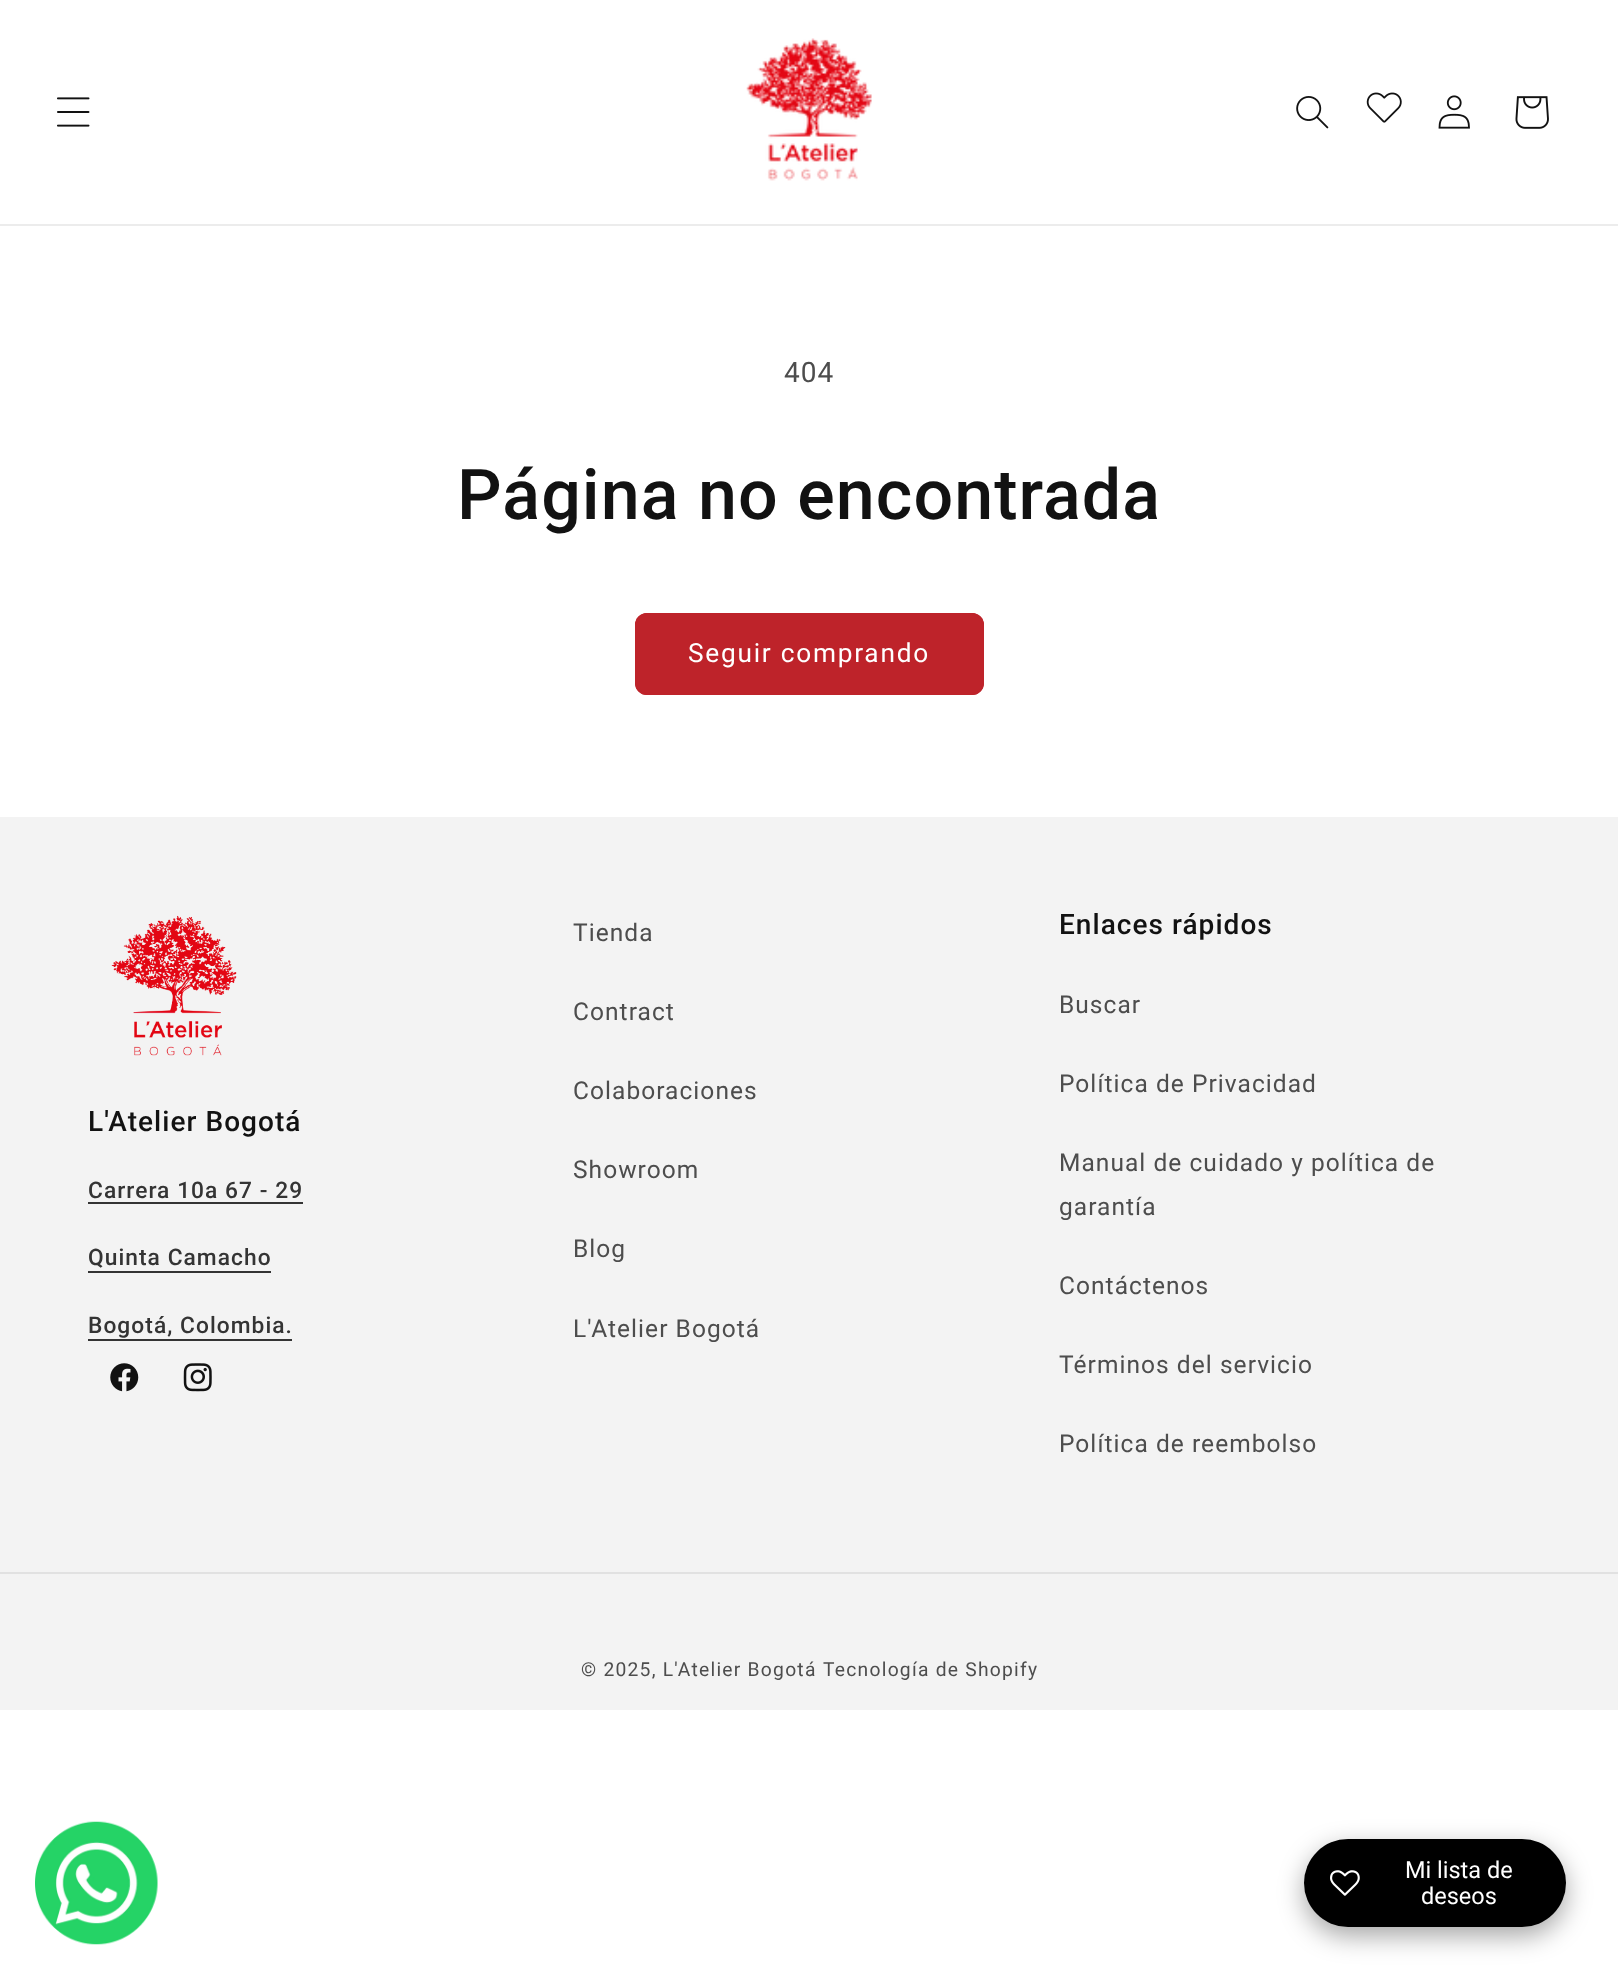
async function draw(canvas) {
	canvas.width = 1618;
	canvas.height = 1979;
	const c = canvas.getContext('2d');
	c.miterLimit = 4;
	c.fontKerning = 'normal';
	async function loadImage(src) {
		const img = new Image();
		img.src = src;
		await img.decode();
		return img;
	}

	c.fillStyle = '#fff';
	c.fillRect(0, 0, 1618, 1979);
	c.fillStyle = '#ececec';
	c.fillRect(0, 224, 1618, 2);
	c.drawImage(await loadImage('img1.png'), 57, 97, 33, 30);
	c.drawImage(await loadImage('img2.png'), 746, 38, 126, 143);
	c.drawImage(await loadImage('img3.png'), 1296, 96, 33, 33);
	c.drawImage(await loadImage('img4.png'), 1366, 92, 36, 31);
	c.drawImage(await loadImage('img5.png'), 1438, 95, 32, 34);
	c.drawImage(await loadImage('img6.png'), 1515, 96, 34, 33);
	c.letterSpacing = '1.05px';
	c.font = '28px Roboto';
	c.fillStyle = '#4d4d4d';
	c.fillText('404', 784, 382);
	c.font = '500 70px Roboto';
	c.fillStyle = '#121212';
	c.fillText('Página no encontrada', 457, 519);
	c.fillStyle = '#be232a';
	c.beginPath();
	c.roundRect(635, 613, 349, 82, 12);
	c.fill();
	c.beginPath();
	c.roundRect(636, 614, 347, 80, 11);
	c.strokeStyle = '#be232a';
	c.lineWidth = 2;
	c.stroke();
	c.letterSpacing = '1.75px';
	c.font = '26.25px Roboto';
	c.fillStyle = '#fff';
	c.fillText('Seguir comprando', 688, 662);
	c.fillStyle = '#f3f3f3';
	c.fillRect(0, 817, 1618, 893);
	c.drawImage(await loadImage('img7.png'), 111, 915, 126, 141);
	c.letterSpacing = '1.05px';
	c.font = '500 28px Roboto';
	c.fillStyle = '#121212';
	c.fillText('L\'Atelier Bogotá', 88, 1131);
	c.font = '500 22.75px Roboto';
	c.fillStyle = '#343434';
	c.fillText('Carrera 10a 67 - 29', 88, 1198);
	c.fillRect(88, 1202, 215, 2);
	c.fillText('Quinta Camacho', 88, 1265);
	c.fillRect(88, 1271, 183, 2);
	c.fillText('Bogotá, Colombia.', 88, 1333);
	c.fillRect(88, 1339, 204, 2);
	c.drawImage(await loadImage('img8.png'), 110, 1363, 29, 29);
	c.drawImage(await loadImage('img9.png'), 183, 1363, 29, 29);
	c.font = '24.5px Roboto';
	c.fillStyle = '#4d4d4d';
	for (const [text, x, y] of [
		['Tienda', 573, 941],
		['Contract', 573, 1020],
		['Colaboraciones', 573, 1099],
		['Showroom', 573, 1178],
		['Blog', 573, 1257],
		['L\'Atelier Bogotá', 573, 1337],
	]) {
		c.fillText(text, x, y);
	}
	c.font = '500 28px Roboto';
	c.fillStyle = '#121212';
	c.fillText('Enlaces rápidos', 1059, 934);
	c.font = '24.5px Roboto';
	c.fillStyle = '#4d4d4d';
	for (const [text, x, y] of [
		['Buscar', 1059, 1013],
		['Política de Privacidad', 1059, 1092],
		['Manual de cuidado y política de', 1059, 1171],
		['garantía', 1059, 1215],
		['Contáctenos', 1059, 1294],
		['Términos del servicio', 1059, 1373],
		['Política de reembolso', 1059, 1452],
	]) {
		c.fillText(text, x, y);
	}
	c.fillStyle = '#e1e1e1';
	c.fillRect(0, 1572, 1618, 2);
	c.letterSpacing = '1.25px';
	c.font = '19.25px Roboto';
	c.fillStyle = '#4d4d4d';
	c.fillText('© 2025, L\'Atelier Bogotá', 581, 1676);
	c.fillText('Tecnología de Shopify', 823, 1676);
	c.drawImage(await loadImage('img10.png'), 35, 1821, 123, 124);
	c.fillStyle = '#00000059';
	c.filter = 'blur(13px)';
	c.beginPath();
	c.roundRect(1304, 1848, 262, 88, 44);
	c.fill();
	c.filter = 'none';
	c.fillStyle = '#000';
	c.beginPath();
	c.roundRect(1304, 1839, 262, 88, 44);
	c.fill();
	c.drawImage(await loadImage('img11.png'), 1330, 1870, 30, 26);
	c.letterSpacing = '0px';
	c.font = '23.5px Roboto';
	c.fillStyle = '#fff';
	c.fillText('Mi lista de', 1405, 1878);
	c.fillText('deseos', 1421, 1904);
}

draw(document.querySelector('canvas'));
